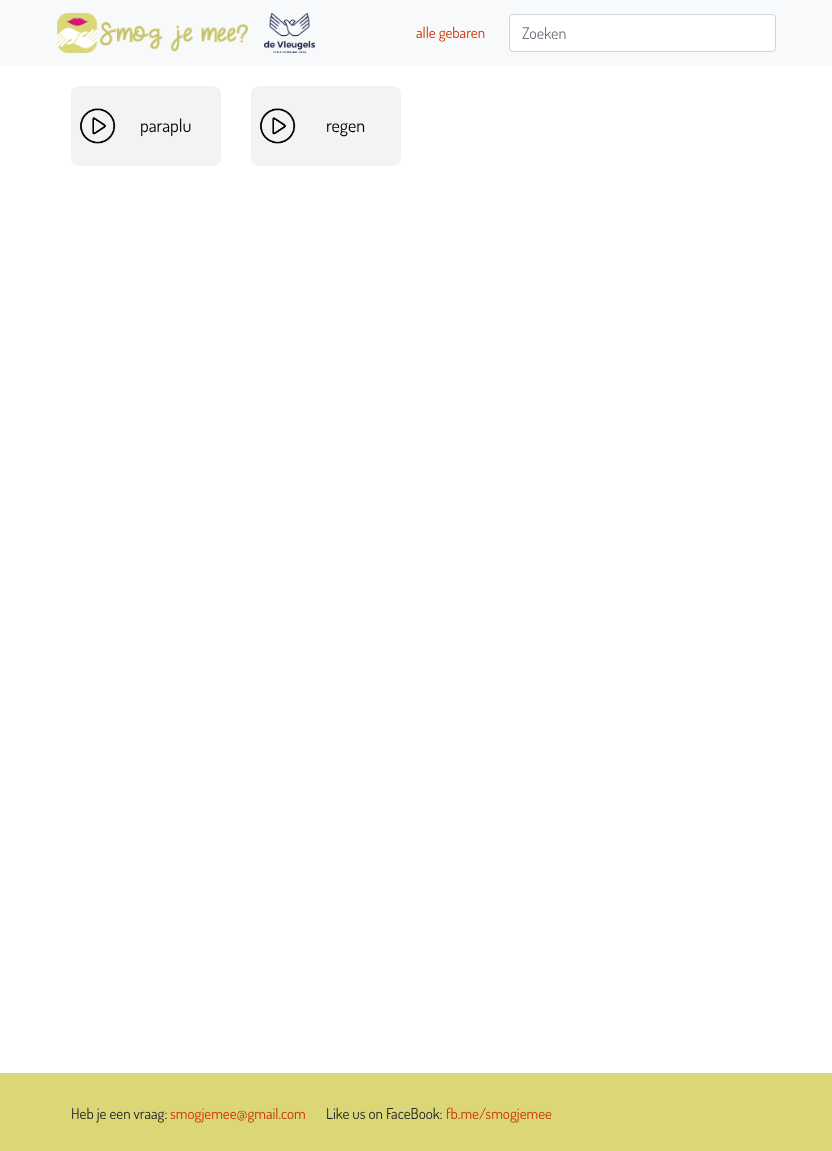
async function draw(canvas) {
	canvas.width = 832;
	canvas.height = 1151;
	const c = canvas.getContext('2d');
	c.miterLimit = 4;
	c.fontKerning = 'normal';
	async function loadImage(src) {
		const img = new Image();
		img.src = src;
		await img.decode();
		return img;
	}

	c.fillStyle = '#fff';
	c.fillRect(0, 0, 832, 1151);
	c.fillStyle = '#f8f9fa';
	c.fillRect(0, 0, 832, 66);
	c.drawImage(await loadImage('img1.png'), 56, 13, 192, 40);
	c.drawImage(await loadImage('img2.png'), 264, 13, 51, 40);
	c.font = '15px Dosis';
	c.fillStyle = '#c30';
	c.fillText('alle gebaren', 416, 38);
	c.fillStyle = '#fff';
	c.beginPath();
	c.roundRect(509.5, 14.5, 266, 37, 3.5);
	c.fill();
	c.strokeStyle = '#ced4da';
	c.stroke();
	c.font = '16px Dosis';
	c.fillStyle = '#6c757d';
	c.fillText('Zoeken', 522, 39);
	c.fillStyle = '#f3f3f3';
	c.beginPath();
	c.roundRect(71, 86, 150, 80, 8);
	c.fill();
	c.drawImage(await loadImage('img3.png'), 79, 108, 37, 36);
	c.font = '18px Dosis';
	c.fillStyle = '#000';
	c.fillText('paraplu', 140, 132);
	c.fillStyle = '#f3f3f3';
	c.beginPath();
	c.roundRect(251, 86, 150, 80, 8);
	c.fill();
	c.drawImage(await loadImage('img3.png'), 259, 108, 37, 36);
	c.fillStyle = '#000';
	c.fillText('regen', 326, 132);
	c.fillStyle = '#dbd676';
	c.fillRect(0, 1073, 832, 78);
	c.font = '15px Dosis';
	c.fillStyle = '#212529';
	c.fillText('Heb je een vraag:', 71, 1119);
	c.fillStyle = '#c30';
	c.fillText('smogjemee@gmail.com', 170, 1119);
	c.fillStyle = '#212529';
	c.fillText('Like us on FaceBook:', 326, 1119);
	c.fillStyle = '#c30';
	c.fillText('fb.me/smogjemee', 446, 1119);
}

draw(document.querySelector('canvas'));
